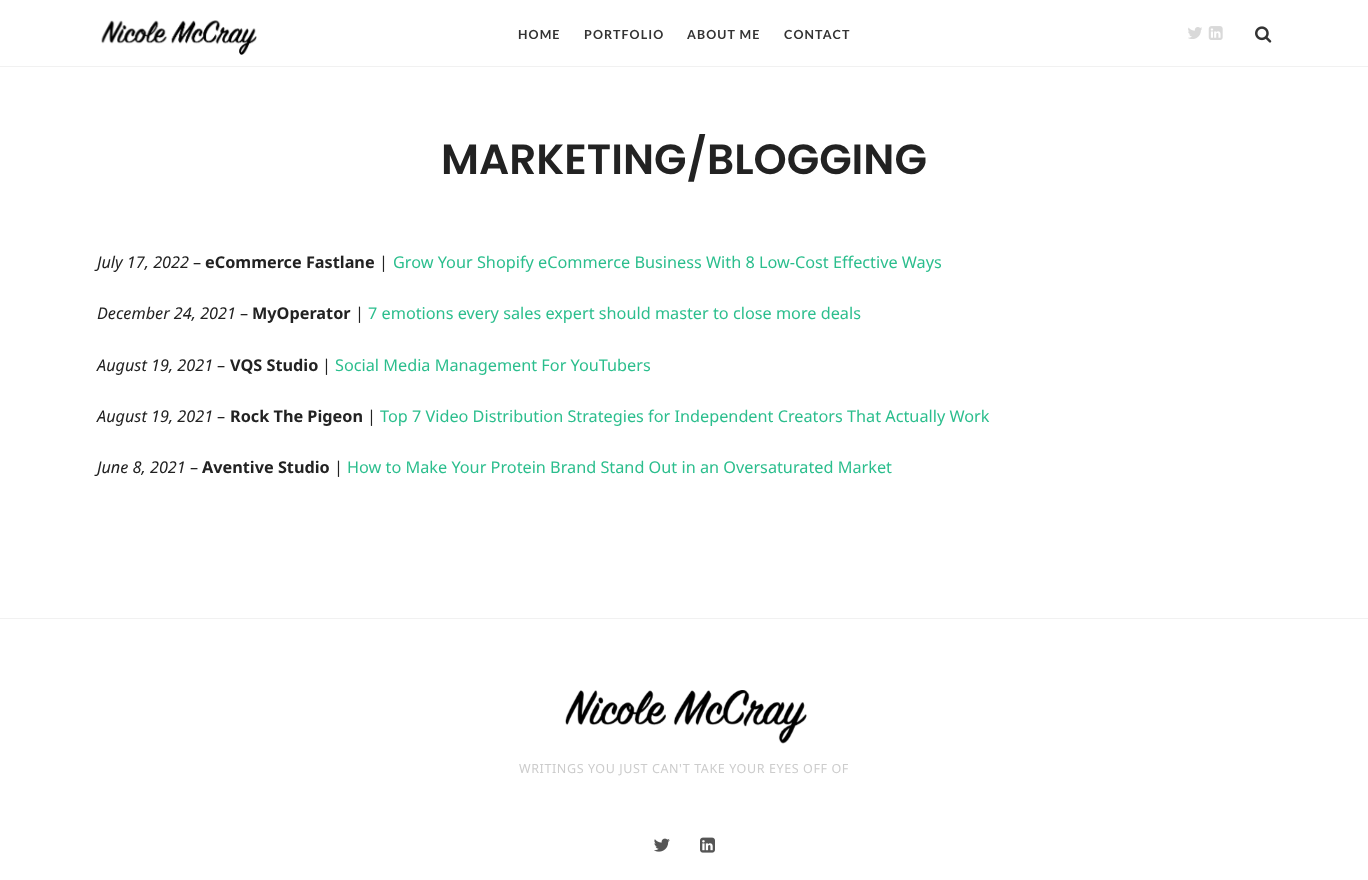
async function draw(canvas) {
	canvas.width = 1368;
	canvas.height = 880;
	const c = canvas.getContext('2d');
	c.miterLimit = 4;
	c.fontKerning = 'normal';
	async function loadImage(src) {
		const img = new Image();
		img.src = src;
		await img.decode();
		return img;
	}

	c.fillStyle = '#fff';
	c.fillRect(0, 0, 1368, 880);
	c.fillStyle = '#f1f1f1';
	c.fillRect(0, 66, 1368, 1);
	c.drawImage(await loadImage('img1.png'), 101, 20, 156, 35);
	c.letterSpacing = '1.1px';
	c.font = 'bold 12.5px Lato';
	c.fillStyle = '#333';
	for (const [text, x, y] of [
		['HOME', 518, 39],
		['PORTFOLIO', 584, 39],
		['ABOUT ME', 687, 39],
		['CONTACT', 784, 39],
	]) {
		c.fillText(text, x, y);
	}
	c.drawImage(await loadImage('img2.png'), 1188, 27, 14, 12);
	c.drawImage(await loadImage('img3.png'), 1208, 26, 15, 14);
	c.drawImage(await loadImage('img4.png'), 1255, 26, 17, 17);
	c.letterSpacing = '0px';
	c.font = '600 42.25px Poppins';
	c.fillStyle = '#222';
	c.fillText('MARKETING/BLOGGING', 441, 174);
	c.font = 'italic 16.25px Noto Sans';
	c.fillText('July 17, 2022', 97, 268);
	c.font = '16.25px Noto Sans';
	c.fillText('–', 193, 268);
	c.font = 'bold 16.25px Noto Sans';
	c.fillText('eCommerce Fastlane', 205, 268);
	c.font = '16.25px Noto Sans';
	c.fillText('|', 379, 268);
	c.fillStyle = '#2bbe8d';
	c.fillText('Grow Your Shopify eCommerce Business With 8 Low-Cost Effective Ways', 393, 268);
	c.font = 'italic 16.25px Noto Sans';
	c.fillStyle = '#222';
	c.fillText('December 24, 2021', 97, 319);
	c.font = '16.25px Noto Sans';
	c.fillText('–', 240, 319);
	c.font = 'bold 16.25px Noto Sans';
	c.fillText('MyOperator', 252, 319);
	c.font = '16.25px Noto Sans';
	c.fillText('|', 355, 319);
	c.fillStyle = '#2bbe8d';
	c.fillText('7 emotions every sales expert should master to close more deals', 368, 319);
	c.font = 'italic 16.25px Noto Sans';
	c.fillStyle = '#222';
	c.fillText('August 19, 2021', 97, 371);
	c.font = '16.25px Noto Sans';
	c.fillText('–', 217, 371);
	c.font = 'bold 16.25px Noto Sans';
	c.fillText('VQS Studio', 230, 371);
	c.font = '16.25px Noto Sans';
	c.fillText('|', 322, 371);
	c.fillStyle = '#2bbe8d';
	c.fillText('Social Media Management For YouTubers', 335, 371);
	c.font = 'italic 16.25px Noto Sans';
	c.fillStyle = '#222';
	c.fillText('August 19, 2021', 97, 422);
	c.font = '16.25px Noto Sans';
	c.fillText('–', 217, 422);
	c.font = 'bold 16.25px Noto Sans';
	c.fillText('Rock The Pigeon', 230, 422);
	c.font = '16.25px Noto Sans';
	c.fillText('|', 367, 422);
	c.fillStyle = '#2bbe8d';
	c.fillText('Top 7 Video Distribution Strategies for Independent Creators That Actually Work', 380, 422);
	c.font = 'italic 16.25px Noto Sans';
	c.fillStyle = '#222';
	c.fillText('June 8, 2021', 97, 473);
	c.font = '16.25px Noto Sans';
	c.fillText('–', 190, 473);
	c.font = 'bold 16.25px Noto Sans';
	c.fillText('Aventive Studio', 202, 473);
	c.font = '16.25px Noto Sans';
	c.fillText('|', 334, 473);
	c.fillStyle = '#2bbe8d';
	c.fillText('How to Make Your Protein Brand Stand Out in an Oversaturated Market', 347, 473);
	c.fillStyle = '#f1f1f1';
	c.fillRect(0, 618, 1368, 1);
	c.drawImage(await loadImage('img5.png'), 565, 690, 242, 54);
	c.letterSpacing = '0.6px';
	c.font = '12.5px Noto Sans';
	c.fillStyle = '#ccc';
	c.fillText('WRITINGS YOU JUST CAN\'T TAKE YOUR EYES OFF OF', 519, 773);
	c.drawImage(await loadImage('img6.png'), 654, 838, 16, 14);
	c.drawImage(await loadImage('img7.png'), 700, 837, 15, 16);
}

draw(document.querySelector('canvas'));
